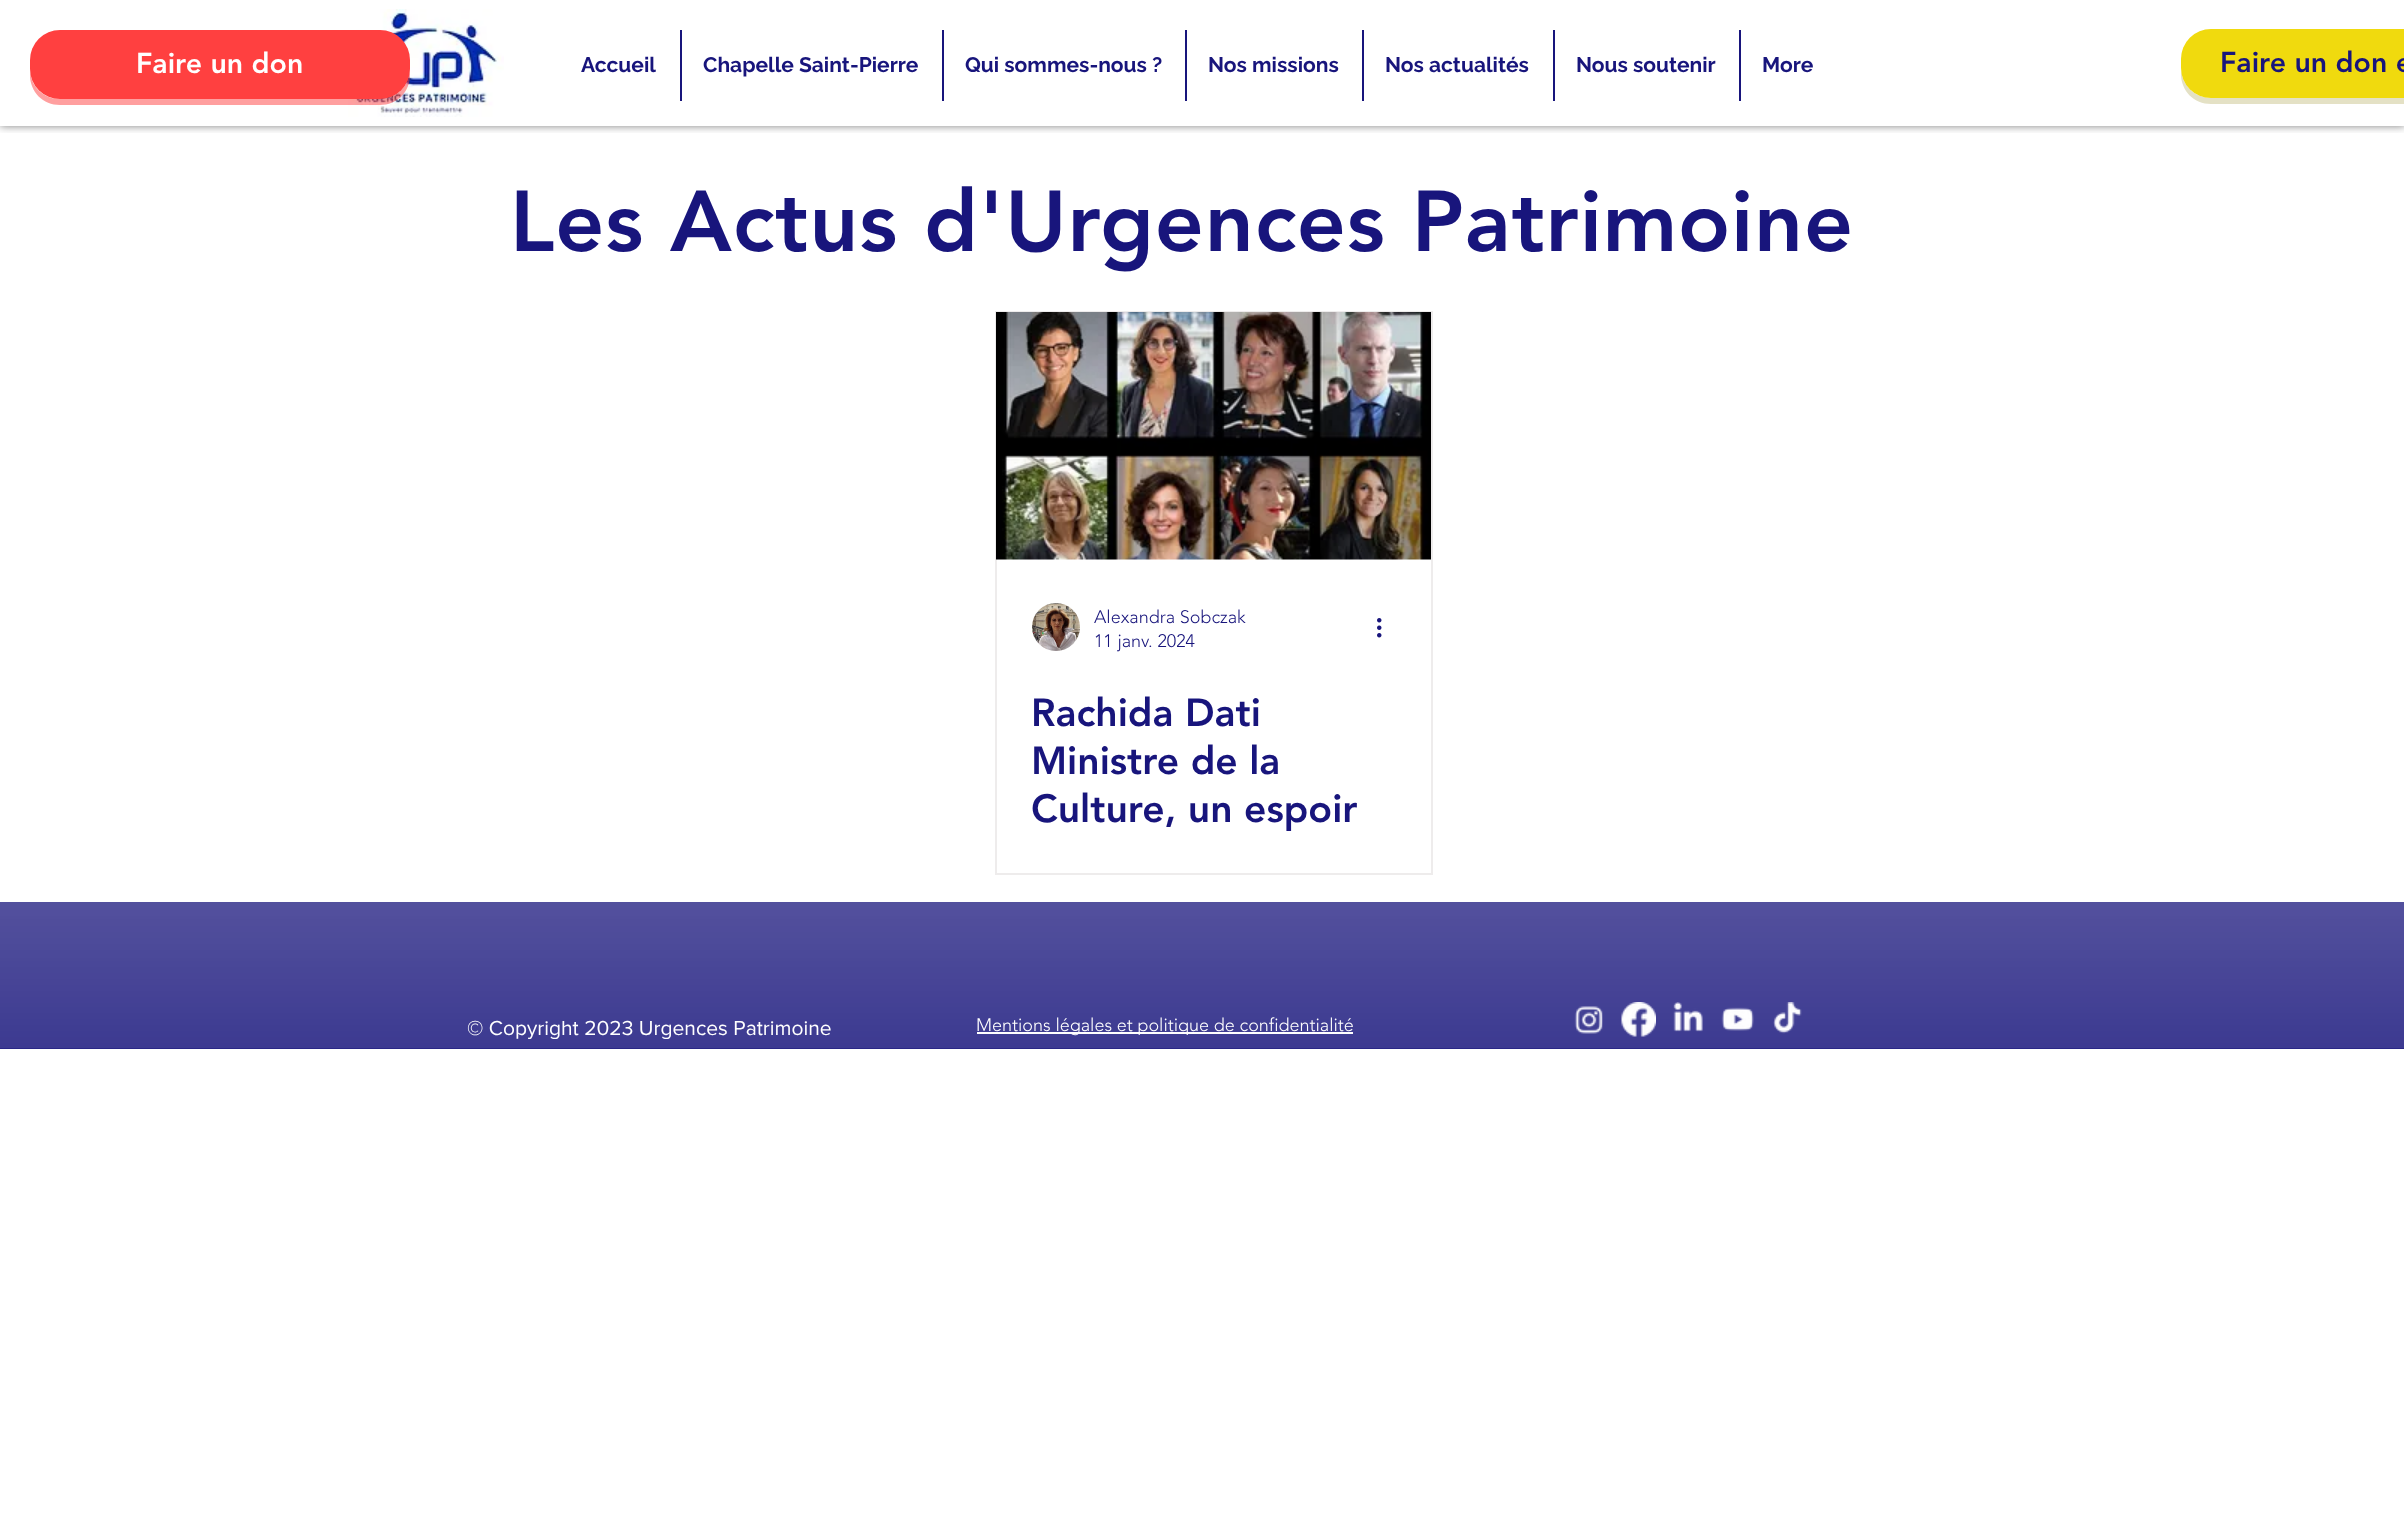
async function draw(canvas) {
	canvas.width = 2404;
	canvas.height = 1528;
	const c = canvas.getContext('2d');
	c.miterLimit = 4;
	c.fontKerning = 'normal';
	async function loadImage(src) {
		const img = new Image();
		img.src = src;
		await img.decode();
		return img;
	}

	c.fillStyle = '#fff';
	c.fillRect(0, 0, 2404, 1528);
	c.save();
	c.beginPath();
	c.rect(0, 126, 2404, 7);
	c.clip();
	c.fillStyle = '#00000080';
	c.filter = 'blur(4px)';
	c.beginPath();
	c.rect(0, 0, 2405, 126);
	c.fill();
	c.filter = 'none';
	c.restore();
	c.drawImage(await loadImage('img1.png'), 348, 9, 156, 108);
	c.fillStyle = '#ff404080';
	c.beginPath();
	c.moveTo(30, 69);
	c.lineTo(30, 75);
	c.bezierCurveTo(30, 92, 43, 105, 60, 105);
	c.lineTo(380, 105);
	c.bezierCurveTo(397, 105, 410, 92, 410, 75);
	c.lineTo(410, 61);
	c.lineTo(410, 69);
	c.bezierCurveTo(410, 86, 396, 99, 380, 99);
	c.lineTo(60, 99);
	c.bezierCurveTo(43, 99, 30, 86, 30, 69);
	c.closePath();
	c.fill();
	c.fillStyle = '#ff4040';
	c.beginPath();
	c.roundRect(30, 30, 380, 69, 30);
	c.fill();
	c.font = '900 28.5px "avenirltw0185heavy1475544"';
	c.fillStyle = '#fff';
	c.fillText('Faire un don', 136, 73);
	c.font = 'bold 21px Raleway';
	c.fillStyle = '#18157c';
	c.fillText('Accueil', 581, 72);
	c.fillRect(680, 30, 2, 71);
	c.fillText('Chapelle Saint-Pierre', 703, 72);
	c.fillRect(942, 30, 2, 71);
	c.fillText('Qui sommes-nous ?', 965, 72);
	c.fillRect(1185, 30, 2, 71);
	c.fillText('Nos missions', 1208, 72);
	c.fillRect(1362, 30, 2, 71);
	c.fillText('Nos actualités', 1385, 72);
	c.fillRect(1553, 30, 2, 71);
	c.fillText('Nous soutenir', 1576, 72);
	c.fillRect(1739, 30, 2, 71);
	c.fillText('More', 1762, 72);
	c.fillStyle = '#e4e1c5';
	c.beginPath();
	c.moveTo(2181, 68);
	c.lineTo(2181, 74);
	c.bezierCurveTo(2181, 91, 2194, 104, 2211, 104);
	c.lineTo(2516, 104);
	c.bezierCurveTo(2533, 104, 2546, 91, 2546, 74);
	c.lineTo(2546, 60);
	c.lineTo(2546, 68);
	c.bezierCurveTo(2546, 84, 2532, 98, 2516, 98);
	c.lineTo(2211, 98);
	c.bezierCurveTo(2194, 98, 2181, 84, 2181, 68);
	c.closePath();
	c.fill();
	c.fillStyle = '#f0da0e';
	c.beginPath();
	c.roundRect(2181, 29, 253, 69, 30);
	c.fill();
	c.font = '900 28.5px "avenirltw0185heavy1475544"';
	c.fillStyle = '#18157c';
	c.fillText('Faire un don e', 2220, 72);
	c.letterSpacing = '0.85px';
	c.font = '900 85.5px "avenirltw0185heavy1475544"';
	c.fillText('Les', 510, 251);
	c.letterSpacing = '1px';
	c.fillText('Actus', 670, 251);
	c.letterSpacing = '0.85px';
	c.fillText('d\'Urgences Patrimoine', 924, 251);
	c.strokeStyle = '#eeecec';
	c.lineWidth = 2;
	c.strokeRect(996, 312, 436, 562);
	c.drawImage(await loadImage('img2.png'), 996, 312, 435, 248);
	c.drawImage(await loadImage('img3.png'), 1032, 603, 48, 48);
	c.letterSpacing = '0px';
	c.font = '300 18px "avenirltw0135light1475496"';
	c.fillText('Alexandra Sobczak', 1094, 623);
	c.fillText('11 janv. 2024', 1094, 647);
	c.drawImage(await loadImage('img4.png'), 1377, 618, 5, 20);
	c.font = '900 39px "avenirltw0185heavy1475544"';
	for (const [text, x, y] of [
		['Rachida Dati', 1031, 726],
		['Ministre de la', 1031, 774],
		['Culture, un espoir', 1031, 822],
	]) {
		c.fillText(text, x, y);
	}
	c.fillRect(0, 902, 2404, 147);
	c.drawImage(await loadImage('img5.png'), 0, 902, 2404, 147);
	c.font = '21px "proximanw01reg"';
	c.fillStyle = '#fff';
	c.fillText('© Copyright 2023 Urgences Patrimoine', 467, 1035);
	c.fillRect(977, 1032, 376, 2);
	c.font = '300 18px "avenirltw0135light1475496"';
	c.fillText('Mentions légales et politique de confidentialité', 976, 1031);
	c.drawImage(await loadImage('img6.png'), 1574, 1006, 29, 28);
	c.drawImage(await loadImage('img7.png'), 1621, 1002, 35, 35);
	c.drawImage(await loadImage('img8.png'), 1673, 1002, 30, 30);
	c.drawImage(await loadImage('img9.png'), 1721, 1007, 33, 24);
	c.drawImage(await loadImage('img10.png'), 1773, 1002, 29, 32);
}

draw(document.querySelector('canvas'));
